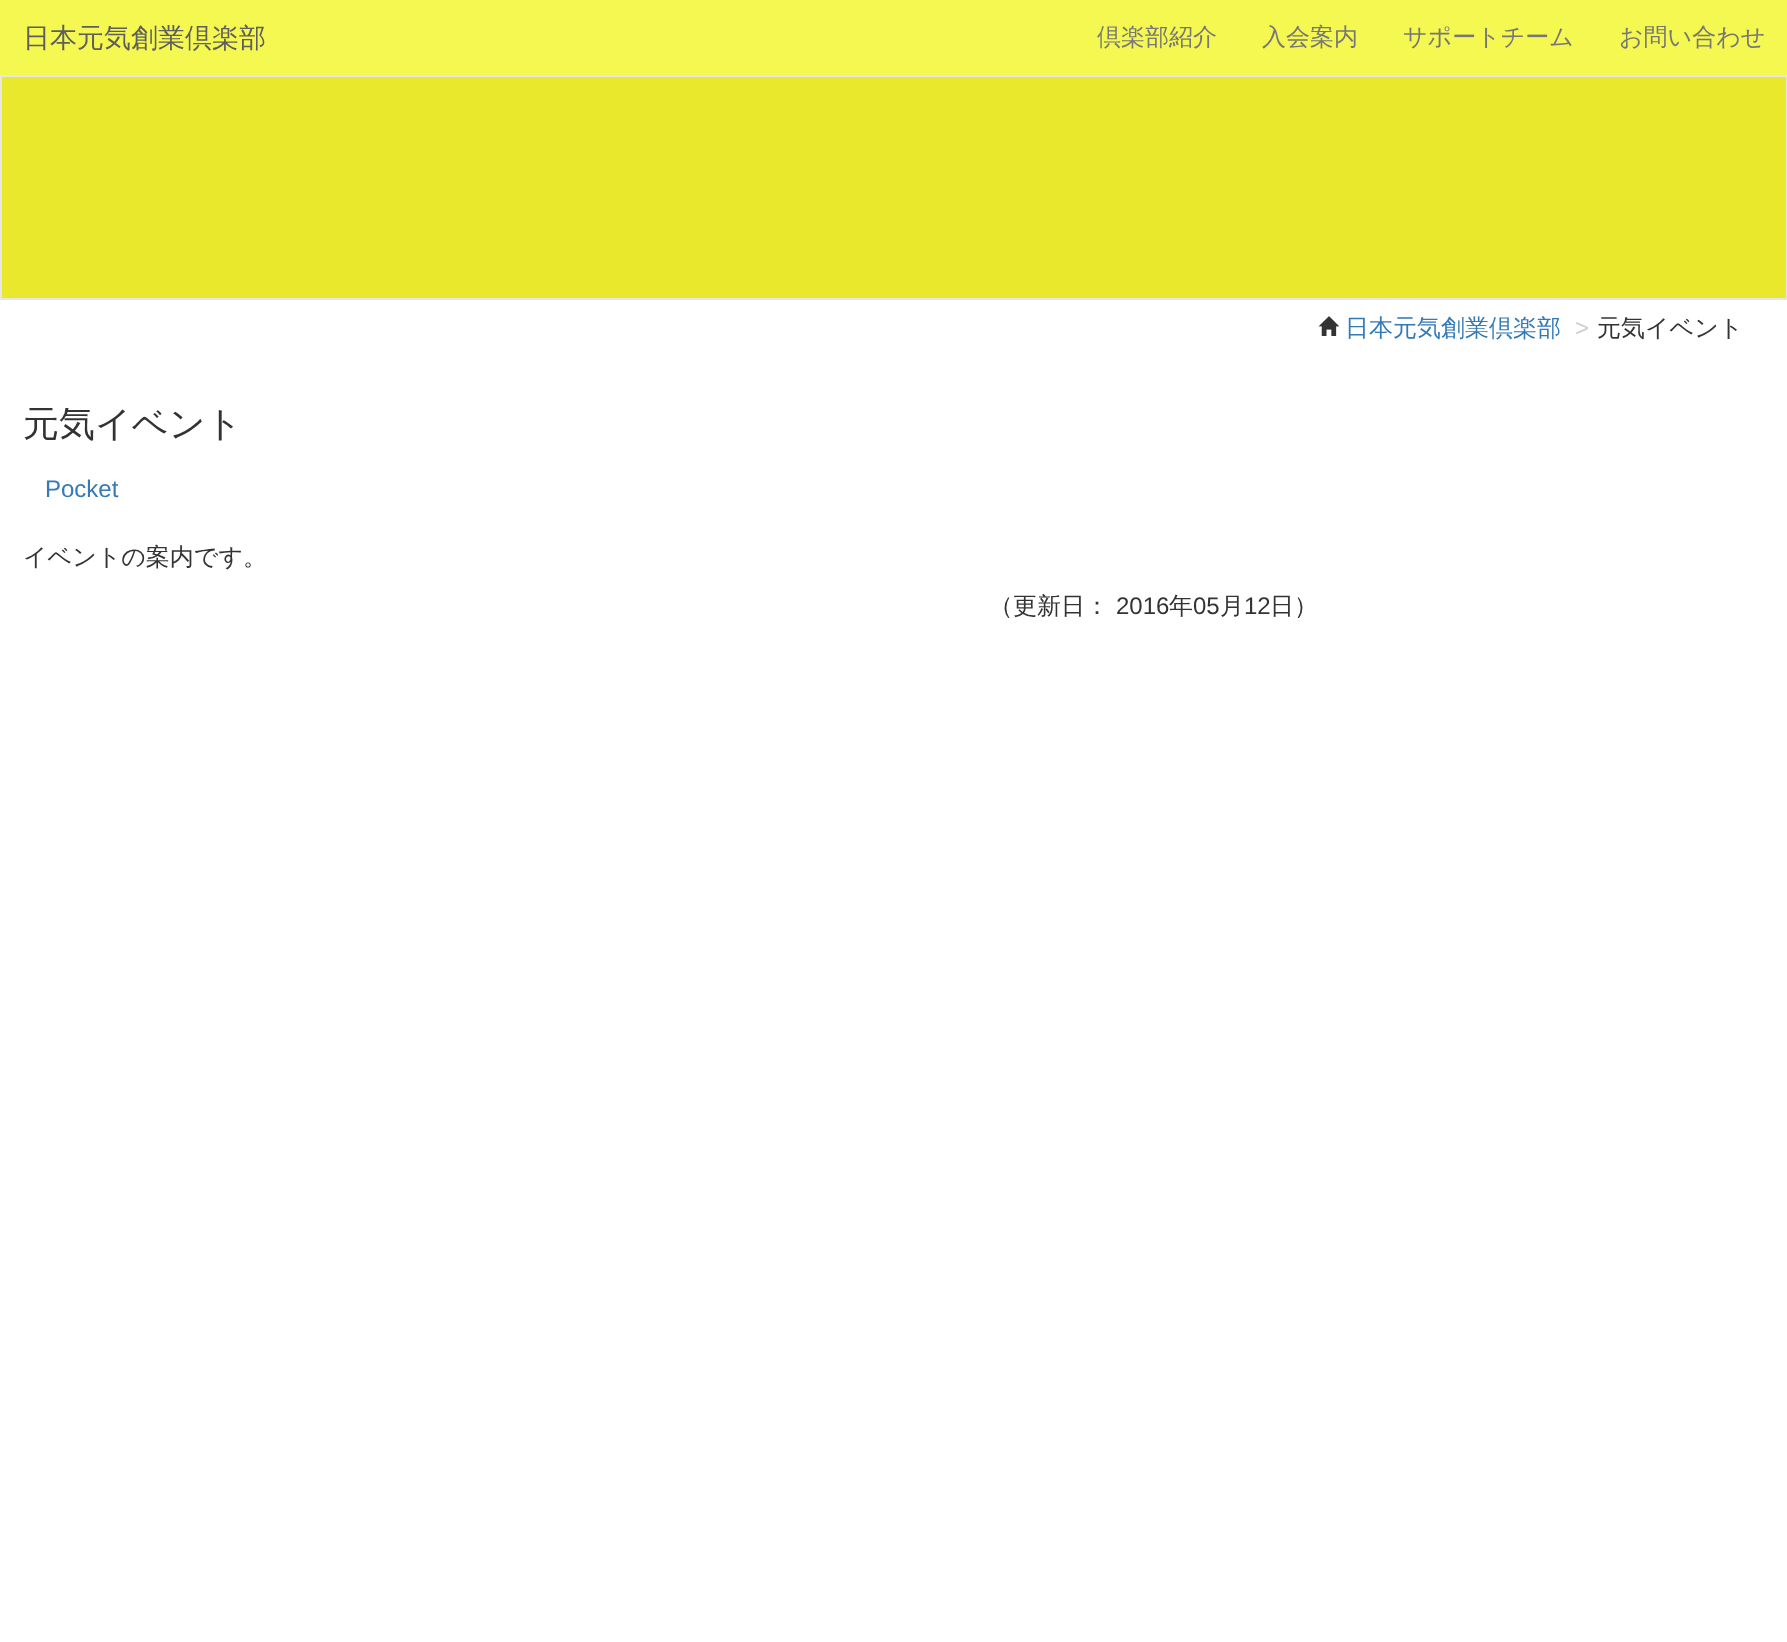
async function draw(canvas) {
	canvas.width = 1787;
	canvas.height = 1642;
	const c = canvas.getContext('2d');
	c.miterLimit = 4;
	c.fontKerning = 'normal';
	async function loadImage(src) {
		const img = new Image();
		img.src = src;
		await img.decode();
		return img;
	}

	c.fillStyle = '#fff';
	c.fillRect(0, 0, 1787, 1642);
	c.fillStyle = '#eae82c';
	c.fillRect(2, 77, 1784, 221);
	c.strokeStyle = '#e7e6e4';
	c.lineWidth = 2;
	c.strokeRect(1, 1, 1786, 298);
	c.fillStyle = '#f5f850';
	c.fillRect(0, 0, 1787, 75);
	c.fillStyle = '#e7e7e7';
	c.fillRect(0, 75, 1787, 2);
	c.font = '500 27px WenQuanYi Zen Hei';
	c.fillStyle = '#5e5e5e';
	c.fillText('日本元気創業倶楽部', 23, 47);
	c.font = '500 24px WenQuanYi Zen Hei';
	c.fillStyle = '#777';
	for (const [text, x, y] of [
		['倶楽部紹介', 1097, 45],
		['入会案内', 1262, 45],
		['サポートチーム', 1403, 45],
		['お問い合わせ', 1619, 45],
	]) {
		c.fillText(text, x, y);
	}
	c.drawImage(await loadImage('img1.png'), 1318, 316, 22, 20);
	c.fillStyle = '#337ab7';
	c.fillText('日本元気創業倶楽部', 1345, 336);
	c.font = '24px Liberation Sans';
	c.fillStyle = '#ccc';
	c.fillText('>', 1575, 336);
	c.font = '500 24px WenQuanYi Zen Hei';
	c.fillStyle = '#333';
	c.fillText('元気イベント', 1597, 336);
	c.font = '500 36px WenQuanYi Zen Hei';
	c.fillText('元気イベント', 23, 436);
	c.font = '24px Liberation Sans';
	c.fillStyle = '#337ab7';
	c.fillText('Pocket', 45, 497);
	c.font = '500 24px WenQuanYi Zen Hei';
	c.fillStyle = '#333';
	c.fillText('イベントの案内です。', 23, 565);
	c.fillText('（更新日：', 989, 614);
	c.font = '24px Liberation Sans';
	c.fillText('2016', 1116, 614);
	c.font = '500 24px WenQuanYi Zen Hei';
	c.fillText('年', 1169, 614);
	c.font = '24px Liberation Sans';
	c.fillText('05', 1193, 614);
	c.font = '500 24px WenQuanYi Zen Hei';
	c.fillText('月', 1220, 614);
	c.font = '24px Liberation Sans';
	c.fillText('12', 1244, 614);
	c.font = '500 24px WenQuanYi Zen Hei';
	c.fillText('日）', 1270, 614);
}

draw(document.querySelector('canvas'));
